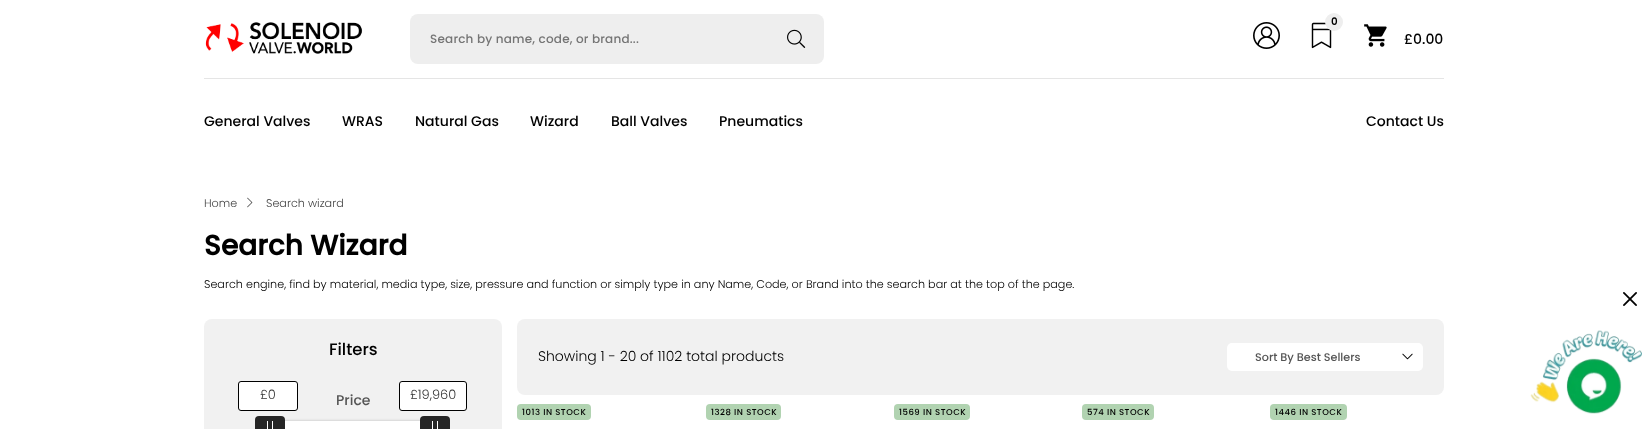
async function draw(canvas) {
	canvas.width = 1647;
	canvas.height = 429;
	const c = canvas.getContext('2d');
	c.miterLimit = 4;
	c.fontKerning = 'normal';
	async function loadImage(src) {
		const img = new Image();
		img.src = src;
		await img.decode();
		return img;
	}

	c.fillStyle = '#fff';
	c.fillRect(0, 0, 1647, 429);
	c.drawImage(await loadImage('img1.png'), 205, 22, 158, 32);
	c.fillStyle = '#eee';
	c.beginPath();
	c.roundRect(410, 14, 359, 50, [8, 0, 0, 8]);
	c.fill();
	c.letterSpacing = '0.2px';
	c.font = '500 12px Poppins';
	c.fillStyle = '#757575';
	c.fillText('Search by name, code, or brand...', 430, 43);
	c.fillStyle = '#eee';
	c.beginPath();
	c.roundRect(769, 14, 55, 50, [0, 8, 8, 0]);
	c.fill();
	c.drawImage(await loadImage('img2.png'), 787, 29, 19, 19);
	c.drawImage(await loadImage('img3.png'), 1311, 22, 21, 27);
	c.beginPath();
	c.arc(1334, 22, 9, 0, 2 * Math.PI);
	c.fill();
	c.letterSpacing = '0px';
	c.font = 'bold 10px Poppins';
	c.fillStyle = '#000';
	c.fillText('0', 1331, 25);
	c.drawImage(await loadImage('img4.png'), 1253, 22, 27, 27);
	c.drawImage(await loadImage('img5.png'), 1364, 24, 23, 23);
	c.font = '500 14px Poppins';
	c.fillText('£0.00', 1404, 44);
	c.fillStyle = '#e5e5e5';
	c.fillRect(204, 78, 1240, 1);
	c.fillStyle = '#000';
	for (const [text, x, y] of [
		['General Valves', 204, 126],
		['WRAS', 342, 126],
		['Natural Gas', 415, 126],
		['Wizard', 530, 126],
		['Ball Valves', 611, 126],
		['Pneumatics', 719, 126],
		['Contact Us', 1366, 126],
	]) {
		c.fillText(text, x, y);
	}
	c.font = '300 11.2px Poppins';
	c.fillStyle = '#444';
	c.fillText('Home', 204, 207);
	c.drawImage(await loadImage('img6.png'), 247, 197, 6, 11);
	c.fillText('Search wizard', 266, 207);
	c.font = 'bold 28px Poppins';
	c.fillStyle = '#000';
	c.fillText('Search Wizard', 204, 255);
	c.font = '300 11.2px Poppins';
	c.fillText('Search engine, find by material, media type, size, pressure and function or simply type in any Name, Code, or Brand into the search bar at the top of the page.', 204, 288);
	c.fillStyle = '#f1f1f1';
	c.beginPath();
	c.roundRect(204, 319, 298, 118, 8);
	c.fill();
	c.font = '500 16.5px Poppins';
	c.fillStyle = '#000';
	c.fillText('Filters', 329, 355);
	c.fillStyle = '#bbb';
	c.filter = 'blur(1.5px)';
	c.beginPath();
	c.roundRect(270, 421, 165, 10, 3);
	c.fill();
	c.filter = 'none';
	c.fillStyle = '#252525';
	c.beginPath();
	c.roundRect(255, 416, 30, 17, 4);
	c.fill();
	c.fillStyle = '#fff';
	c.beginPath();
	c.roundRect(238.5, 381.5, 59, 29, 2.5);
	c.fill();
	c.strokeStyle = '#000';
	c.stroke();
	c.font = '300 13px Poppins';
	c.fillStyle = '#333';
	c.fillText('£0', 260, 399);
	c.fillStyle = '#fff';
	c.fillRect(267, 421, 1, 8);
	c.fillRect(272, 421, 1, 8);
	c.fillStyle = '#252525';
	c.beginPath();
	c.roundRect(420, 416, 30, 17, 4);
	c.fill();
	c.fillStyle = '#fff';
	c.beginPath();
	c.roundRect(399.5, 381.5, 67, 29, 2.5);
	c.fill();
	c.stroke();
	c.fillStyle = '#333';
	c.fillText('£19,960', 410, 399);
	for (const [x, y, w, h, color] of [
		[432, 421, 1, 8, '#fff'],
		[437, 421, 1, 8, '#fff'],
		[285, 421, 135, 8, '#fff'],
	]) {
		c.fillStyle = color;
		c.fillRect(x, y, w, h);
	}
	c.font = '500 14px Poppins';
	c.fillStyle = '#555';
	c.fillText('Price', 336, 405);
	c.fillStyle = '#f1f1f1';
	c.beginPath();
	c.roundRect(517, 319, 927, 76, 8);
	c.fill();
	c.font = '300 14px Poppins';
	c.fillStyle = '#000';
	c.fillText('Showing 1 - 20 of 1102 total products', 538, 361);
	c.fillStyle = '#fff';
	c.beginPath();
	c.roundRect(1227, 343, 196, 28, 5);
	c.fill();
	c.drawImage(await loadImage('img7.png'), 1402, 353, 11, 7);
	c.font = '500 11.2px Poppins';
	c.fillStyle = '#555';
	c.fillText('Sort By Best Sellers', 1255, 361);
	c.fillStyle = '#b1d3b1';
	c.beginPath();
	c.roundRect(517, 404, 74, 16, 4);
	c.fill();
	c.letterSpacing = '0.5px';
	c.font = '500 8.5px Poppins';
	c.fillStyle = '#000';
	c.fillText('1013 IN STOCK', 522, 415);
	c.fillStyle = '#b1d3b1';
	c.beginPath();
	c.roundRect(706, 404, 75, 16, 4);
	c.fill();
	c.fillStyle = '#000';
	c.fillText('1328 IN STOCK', 711, 415);
	c.fillStyle = '#b1d3b1';
	c.beginPath();
	c.roundRect(894, 404, 76, 16, 4);
	c.fill();
	c.fillStyle = '#000';
	c.fillText('1569 IN STOCK', 899, 415);
	c.fillStyle = '#b1d3b1';
	c.beginPath();
	c.roundRect(1082, 404, 72, 16, 4);
	c.fill();
	c.fillStyle = '#000';
	c.fillText('574 IN STOCK', 1087, 415);
	c.fillStyle = '#b1d3b1';
	c.beginPath();
	c.roundRect(1270, 404, 77, 16, 4);
	c.fill();
	c.fillStyle = '#000';
	c.fillText('1446 IN STOCK', 1275, 415);
	c.drawImage(await loadImage('img8.png'), 1623, 292, 14, 14);
	c.drawImage(await loadImage('img9.png'), 1530, 330, 112, 84);
}

draw(document.querySelector('canvas'));
